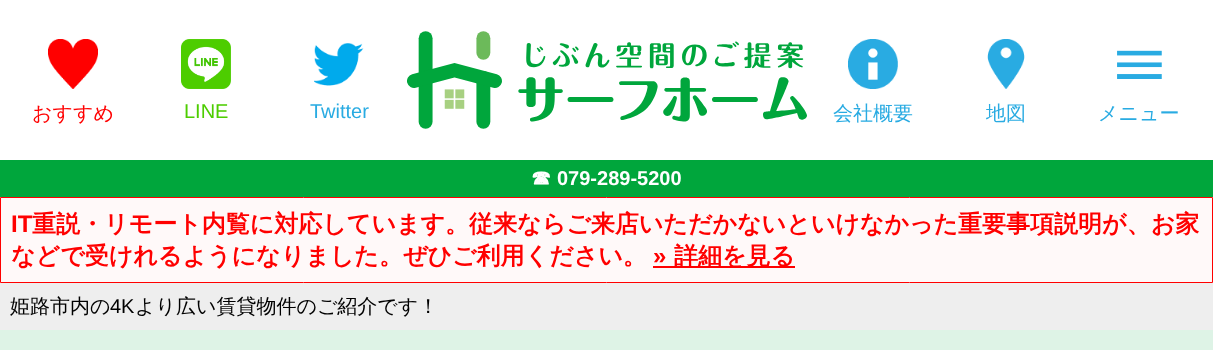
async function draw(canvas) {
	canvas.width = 1213;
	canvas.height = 355;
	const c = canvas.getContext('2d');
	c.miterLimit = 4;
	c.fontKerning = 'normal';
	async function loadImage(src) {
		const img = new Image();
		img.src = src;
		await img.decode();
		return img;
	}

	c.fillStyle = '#fff';
	c.fillRect(0, 0, 1213, 355);
	c.drawImage(await loadImage('img1.png'), 48, 39, 50, 50);
	c.font = '500 20px WenQuanYi Zen Hei';
	c.fillStyle = '#f00';
	c.fillText('おすすめ', 32, 120);
	c.drawImage(await loadImage('img2.png'), 181, 39, 50, 50);
	c.font = '20px Liberation Sans';
	c.fillStyle = '#4dcd00';
	c.fillText('LINE', 184, 118);
	c.drawImage(await loadImage('img3.png'), 314, 43, 50, 43);
	c.fillStyle = '#29abe2';
	c.fillText('Twitter', 310, 118);
	c.drawImage(await loadImage('img4.png'), 407, 31, 400, 98);
	c.drawImage(await loadImage('img5.png'), 848, 39, 50, 50);
	c.font = '500 20px WenQuanYi Zen Hei';
	c.fillText('会社概要', 833, 120);
	c.drawImage(await loadImage('img6.png'), 987, 39, 38, 50);
	c.fillText('地図', 986, 120);
	c.drawImage(await loadImage('img7.png'), 1117, 50, 45, 29);
	c.fillText('メニュー', 1098, 120);
	c.fillStyle = '#00a63c';
	c.fillRect(0, 160, 1213, 37);
	c.font = 'bold 20px WenQuanYi Zen Hei';
	c.fillStyle = '#fff';
	c.fillText('☎', 531, 185);
	c.font = 'bold 20px Liberation Sans';
	c.fillText('079-289-5200', 557, 185);
	c.fillStyle = '#fff9f9';
	c.beginPath();
	c.rect(0.5, 197.5, 1212, 85);
	c.fill();
	c.strokeStyle = '#f00';
	c.stroke();
	c.font = 'bold 24px Liberation Sans';
	c.fillStyle = '#f00';
	c.fillText('IT', 11, 232);
	c.font = 'bold 24px WenQuanYi Zen Hei';
	c.fillText('重説・リモート内覧に対応しています。従来ならご来店いただかないといけなかった重要事項説明が、お家', 32, 232);
	c.fillText('などで受けれるようになりました。ぜひご利用ください。', 11, 264);
	c.font = 'bold 24px Liberation Sans';
	c.fillText('»', 653, 264);
	c.fillRect(653, 266, 142, 2);
	c.font = 'bold 24px WenQuanYi Zen Hei';
	c.fillText('詳細を見る', 674, 264);
	c.fillStyle = '#eee';
	c.fillRect(0, 283, 1213, 47);
	c.font = '500 20px WenQuanYi Zen Hei';
	c.fillStyle = '#000';
	c.fillText('姫路市内の', 10, 313);
	c.font = '20px Liberation Sans';
	c.fillText('4K', 110, 313);
	c.font = '500 20px WenQuanYi Zen Hei';
	c.fillText('より広い賃貸物件のご紹介です！', 135, 313);
	c.fillStyle = '#def3e6';
	c.fillRect(0, 330, 1213, 20);
}

draw(document.querySelector('canvas'));
